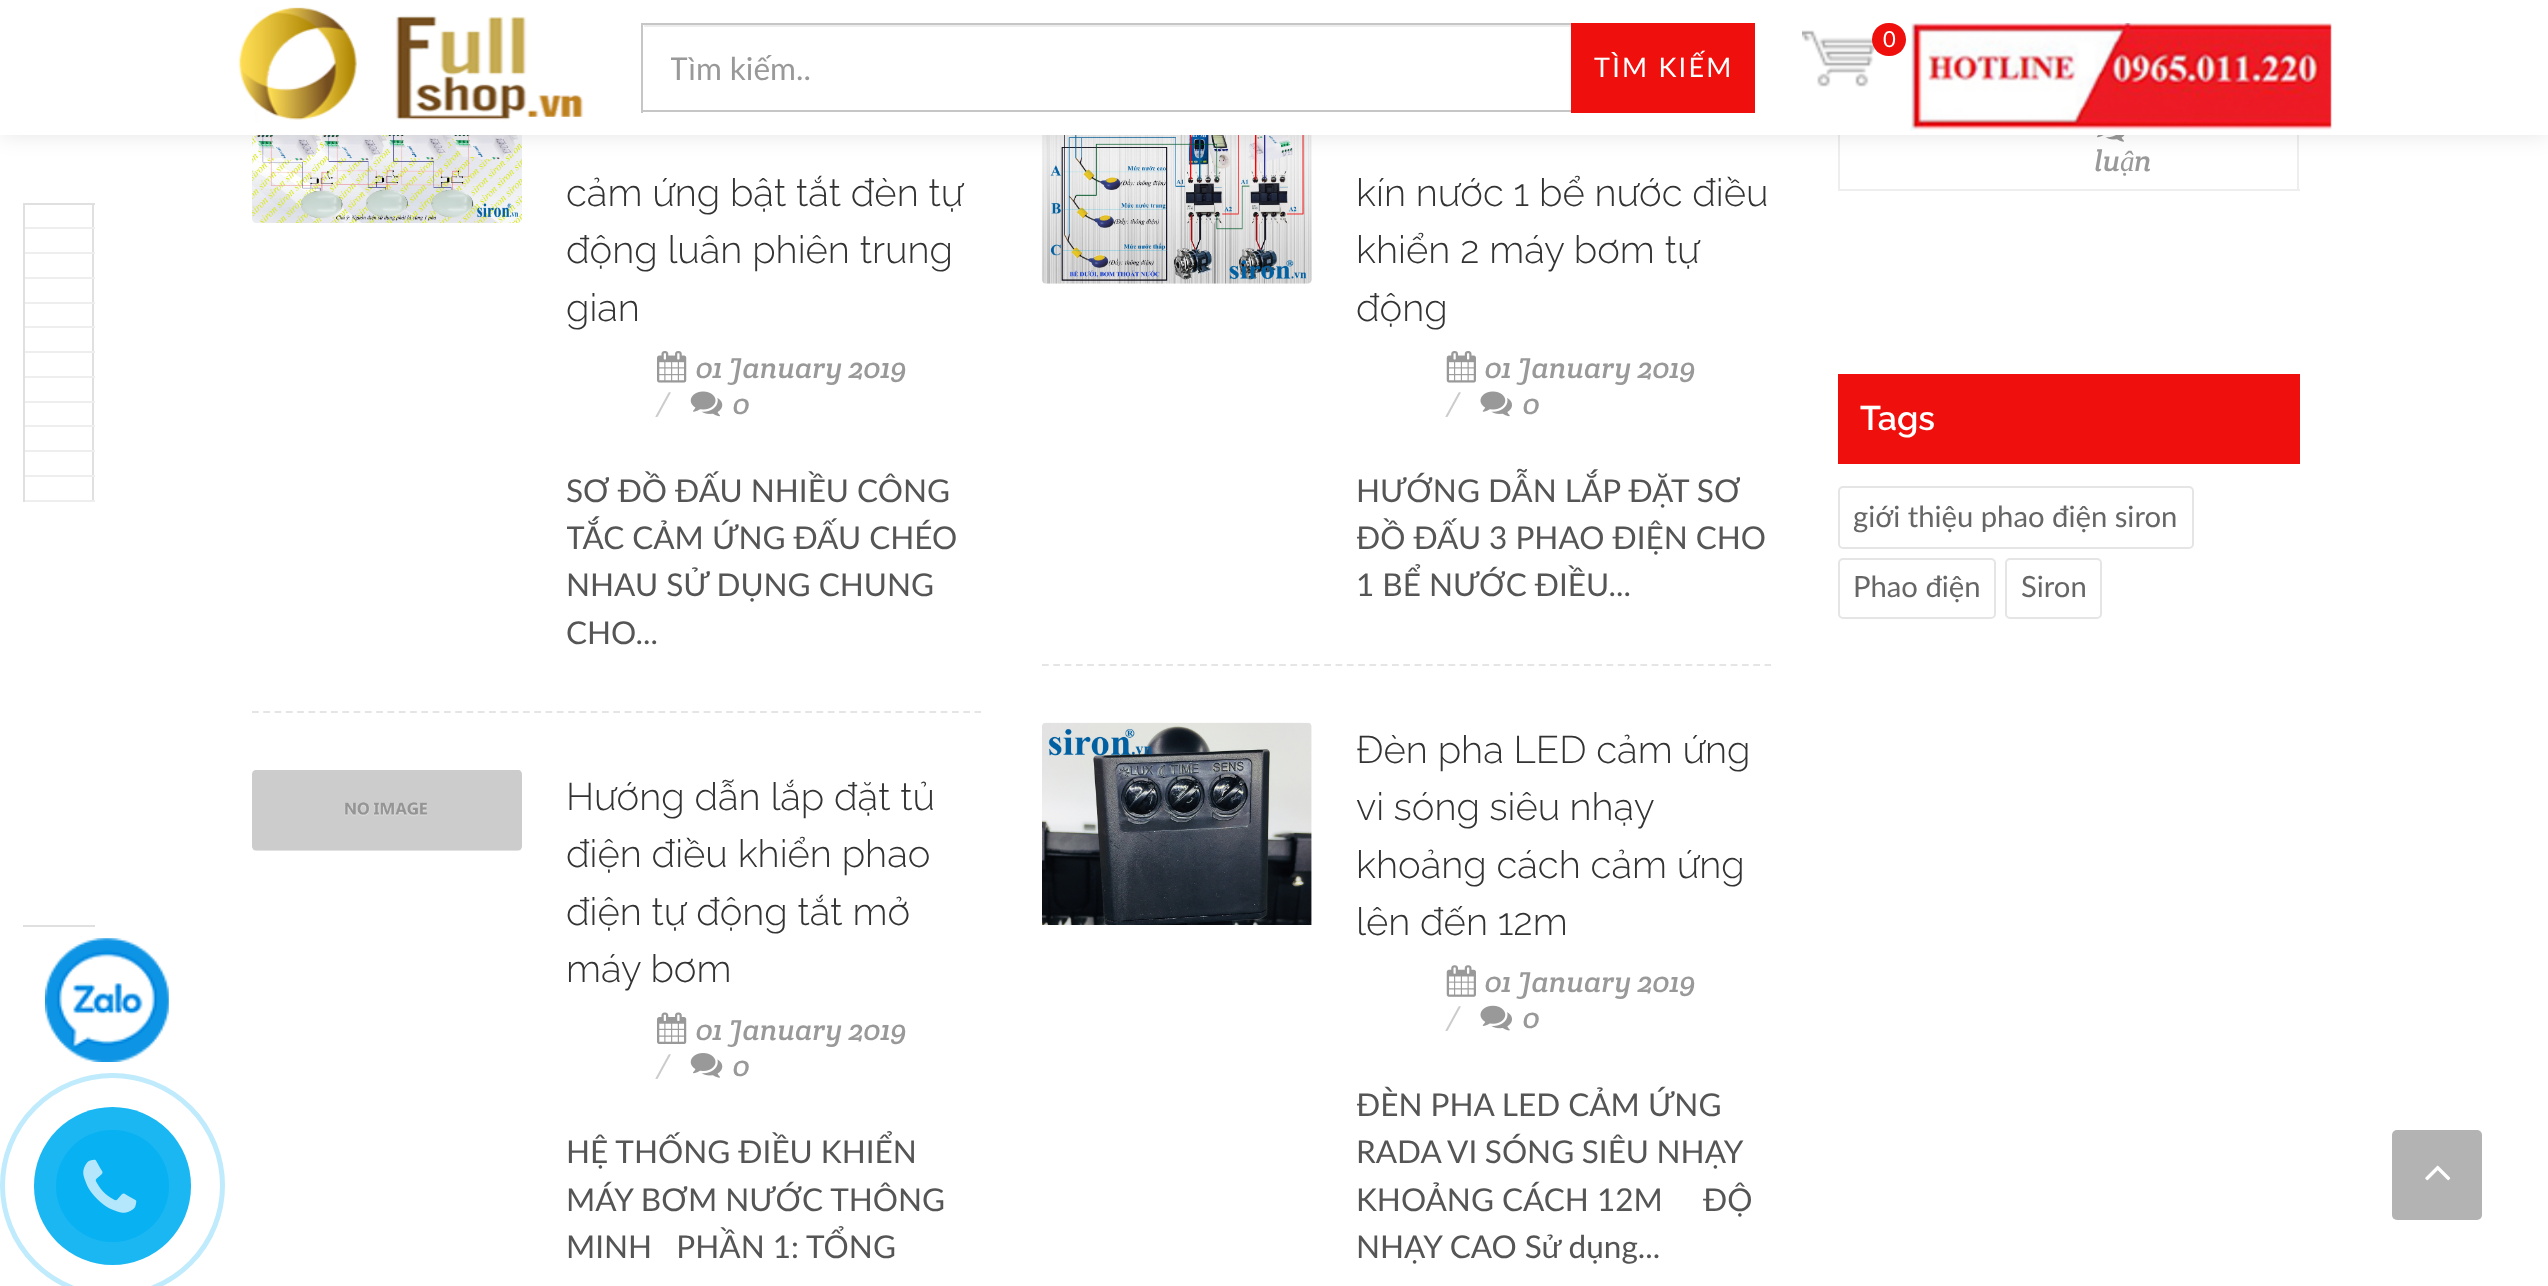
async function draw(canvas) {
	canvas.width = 2548;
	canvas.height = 1286;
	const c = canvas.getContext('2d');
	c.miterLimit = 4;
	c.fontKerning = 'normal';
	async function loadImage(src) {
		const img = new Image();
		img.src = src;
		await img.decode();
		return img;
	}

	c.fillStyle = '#fff';
	c.fillRect(0, 0, 2548, 1286);
	c.drawImage(await loadImage('img1.png'), 45, 938, 124, 124);
	c.drawImage(await loadImage('img5.png'), 252, 135, 270, 88);
	c.drawImage(await loadImage('img11.png'), 1041, 135, 271, 149);
	for (const [x, y, w, h, color] of [
		[2297, 135, 2, 56, '#eee'],
		[1838, 189, 462, 2, '#eee'],
		[1838, 135, 2, 56, '#eee'],
	]) {
		c.fillStyle = color;
		c.fillRect(x, y, w, h);
	}
	c.drawImage(await loadImage('img17.png'), 2097, 135, 28, 7);
	c.fillStyle = '#0000001a';
	c.filter = 'blur(11px)';
	c.beginPath();
	c.rect(0, 0, 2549, 135);
	c.fill();
	c.filter = 'none';
	c.fillStyle = '#fff';
	c.fillRect(0, 0, 2548, 135);
	c.drawImage(await loadImage('img2.png'), 238, 7, 346, 116);
	c.drawImage(await loadImage('img3.png'), 1802, 30, 73, 57);
	c.fillStyle = '#ef0f0c';
	c.beginPath();
	c.roundRect(1872, 23, 34, 33, 16.5);
	c.fill();
	c.font = '22px Lato';
	c.fillStyle = '#fff';
	c.fillText('0', 1883, 47);
	c.drawImage(await loadImage('img4.png'), 1910, 23, 422, 108);
	for (const [x, y, w, h, color] of [
		[644, 25, 927, 2, '#ececec'],
		[641, 23, 930, 2, '#c6c6c6'],
		[641, 110, 930, 2, '#c6c6c6'],
		[641, 23, 2, 90, '#c6c6c6'],
	]) {
		c.fillStyle = color;
		c.fillRect(x, y, w, h);
	}
	c.save();
	c.beginPath();
	c.rect(671, 50, 882, 38);
	c.clip();
	c.font = '31.5px Lato';
	c.fillStyle = '#999';
	c.fillText('Tìm kiếm..', 669, 80);
	c.restore();
	c.fillStyle = '#ef0f0c';
	c.fillRect(1571, 23, 184, 90);
	c.letterSpacing = '2.25px';
	c.font = '27px Lato';
	c.fillStyle = '#fff';
	c.fillText('TÌM KIẾM', 1594, 77);
	for (const [x, y, w, h, color] of [
		[23, 203, 72, 2, '#e0e0e0'],
		[23, 925, 72, 2, '#e0e0e0'],
		[92, 205, 2, 297, '#e0e0e0'],
		[23, 227, 72, 2, '#eee'],
		[23, 205, 2, 25, '#e0e0e0'],
		[23, 252, 72, 2, '#eee'],
		[23, 230, 2, 24, '#e0e0e0'],
		[23, 277, 72, 2, '#eee'],
		[23, 254, 2, 25, '#e0e0e0'],
		[23, 302, 72, 2, '#eee'],
		[23, 279, 2, 25, '#e0e0e0'],
		[23, 326, 72, 2, '#eee'],
		[23, 304, 2, 25, '#e0e0e0'],
		[23, 351, 72, 2, '#eee'],
		[23, 329, 2, 24, '#e0e0e0'],
		[23, 376, 72, 2, '#eee'],
		[23, 353, 2, 25, '#e0e0e0'],
		[23, 401, 72, 2, '#eee'],
		[23, 378, 2, 25, '#e0e0e0'],
		[23, 425, 72, 2, '#eee'],
		[23, 403, 2, 25, '#e0e0e0'],
		[23, 450, 72, 2, '#eee'],
		[23, 428, 2, 24, '#e0e0e0'],
		[23, 475, 72, 2, '#eee'],
		[23, 452, 2, 25, '#e0e0e0'],
		[23, 500, 72, 2, '#eee'],
		[23, 477, 2, 25, '#e0e0e0'],
	]) {
		c.fillStyle = color;
		c.fillRect(x, y, w, h);
	}
	c.letterSpacing = '0px';
	c.font = '300 38.25px Raleway';
	c.fillStyle = '#333';
	for (const [text, x, y] of [
		['cảm ứng bật tắt đèn tự', 566, 206],
		['động luân phiên trung', 566, 263],
		['gian', 566, 321],
	]) {
		c.fillText(text, x, y);
	}
	c.drawImage(await loadImage('img6.png'), 657, 351, 30, 32);
	c.font = 'italic 29.25px Crete Round';
	c.fillStyle = '#999';
	c.fillText('01 January 2019', 696, 378);
	c.fillStyle = '#ccc';
	c.fillText('/', 656, 414);
	c.drawImage(await loadImage('img7.png'), 690, 391, 33, 26);
	c.fillStyle = '#999';
	c.fillText('0', 733, 414);
	c.font = '31.5px Lato';
	c.fillStyle = '#555';
	c.fillText('SƠ ĐỒ ĐẤU NHIỀU CÔNG', 566, 502);
	c.save();
	c.beginPath();
	c.rect(567, 108, 414, 547);
	c.clip();
	c.fillText('TẮC CẢM ỨNG ĐẤU CHÉO', 566, 549);
	c.restore();
	c.fillText('NHAU SỬ DỤNG CHUNG', 566, 596);
	c.fillText('CHO...', 566, 644);
	c.beginPath();
	c.moveTo(252, 712);
	c.lineTo(981, 712);
	c.strokeStyle = '#e5e5e5';
	c.lineWidth = 2.2;
	c.setLineDash([6.75, 4.54]);
	c.stroke();
	c.drawImage(await loadImage('img8.png'), 252, 770, 270, 81);
	c.font = '300 38.25px Raleway';
	c.fillStyle = '#333';
	for (const [text, x, y] of [
		['Hướng dẫn lắp đặt tủ', 566, 810],
		['điện điều khiển phao', 566, 867],
		['điện tự động tắt mở', 566, 925],
		['máy bơm', 566, 982],
	]) {
		c.fillText(text, x, y);
	}
	c.drawImage(await loadImage('img9.png'), 657, 1012, 30, 32);
	c.font = 'italic 29.25px Crete Round';
	c.fillStyle = '#999';
	c.fillText('01 January 2019', 696, 1040);
	c.fillStyle = '#ccc';
	c.fillText('/', 656, 1076);
	c.drawImage(await loadImage('img10.png'), 690, 1053, 33, 25);
	c.fillStyle = '#999';
	c.fillText('0', 733, 1076);
	c.font = '31.5px Lato';
	c.fillStyle = '#555';
	for (const [text, x, y] of [
		['HỆ THỐNG ĐIỀU KHIỂN', 566, 1163],
		['MÁY BƠM NƯỚC THÔNG', 566, 1211],
		['MINH   PHẦN 1: TỔNG', 566, 1258],
	]) {
		c.fillText(text, x, y);
	}
	c.font = '300 38.25px Raleway';
	c.fillStyle = '#333';
	for (const [text, x, y] of [
		['kín nước 1 bể nước điều', 1356, 206],
		['khiển 2 máy bơm tự', 1356, 263],
		['động', 1356, 321],
	]) {
		c.fillText(text, x, y);
	}
	c.drawImage(await loadImage('img12.png'), 1446, 351, 30, 32);
	c.font = 'italic 29.25px Crete Round';
	c.fillStyle = '#999';
	c.fillText('01 January 2019', 1485, 378);
	c.fillStyle = '#ccc';
	c.fillText('/', 1446, 414);
	c.drawImage(await loadImage('img13.png'), 1480, 391, 32, 26);
	c.fillStyle = '#999';
	c.fillText('0', 1523, 414);
	c.font = '31.5px Lato';
	c.fillStyle = '#555';
	c.fillText('HƯỚNG DẪN LẮP ĐẶT SƠ', 1356, 502);
	c.save();
	c.beginPath();
	c.rect(1357, 108, 414, 500);
	c.clip();
	c.fillText('ĐỒ ĐẤU 3 PHAO ĐIỆN CHO', 1356, 549);
	c.restore();
	c.fillText('1 BỂ NƯỚC ĐIỀU...', 1356, 596);
	c.beginPath();
	c.moveTo(1042, 665);
	c.lineTo(1771, 665);
	c.stroke();
	c.drawImage(await loadImage('img14.png'), 1042, 722, 270, 203);
	c.font = '300 38.25px Raleway';
	c.fillStyle = '#333';
	c.fillText('Đèn pha LED cảm ứng', 1356, 763);
	c.wordSpacing = '-0.5px';
	c.fillText('vi sóng siêu nhạy', 1356, 820);
	c.wordSpacing = '0px';
	c.fillText('khoảng cách cảm ứng', 1356, 878);
	c.fillText('lên đến 12m', 1356, 935);
	c.drawImage(await loadImage('img15.png'), 1446, 965, 30, 32);
	c.font = 'italic 29.25px Crete Round';
	c.fillStyle = '#999';
	c.fillText('01 January 2019', 1485, 992);
	c.fillStyle = '#ccc';
	c.fillText('/', 1446, 1028);
	c.drawImage(await loadImage('img16.png'), 1480, 1005, 32, 26);
	c.fillStyle = '#999';
	c.fillText('0', 1523, 1028);
	c.save();
	c.beginPath();
	c.rect(1357, 722, 414, 547);
	c.clip();
	c.font = '31.5px Lato';
	c.fillStyle = '#555';
	c.fillText('ĐÈN PHA LED CẢM ỨNG', 1356, 1116);
	c.restore();
	c.wordSpacing = '-0.5px';
	c.font = '31.5px Lato';
	c.fillStyle = '#555';
	c.fillText('RADA VI SÓNG SIÊU NHẠY', 1356, 1163);
	c.wordSpacing = '0px';
	for (const [text, x, y] of [
		['KHOẢNG CÁCH 12M', 1356, 1211],
		['ĐỘ', 1703, 1211],
		['NHẠY CAO Sử dụng...', 1356, 1258],
	]) {
		c.fillText(text, x, y);
	}
	c.font = 'italic 29.25px Crete Round';
	c.fillStyle = '#999';
	c.fillText('lu', 2094, 171);
	c.font = 'italic 29.25px Liberation Serif';
	c.fillText('ậ', 2120, 171);
	c.font = 'italic 29.25px Crete Round';
	c.fillText('n', 2134, 171);
	c.fillStyle = '#ef0f0c';
	c.fillRect(1838, 374, 462, 90);
	c.font = '600 34px Raleway';
	c.fillStyle = '#fff';
	c.fillText('Tags', 1860, 430);
	c.beginPath();
	c.roundRect(1839, 487, 354, 61, 4);
	c.lineWidth = 2;
	c.setLineDash([]);
	c.stroke();
	c.font = '29.25px Lato';
	c.fillStyle = '#666';
	c.fillText('giới thiệu phao điện siron', 1853, 527);
	c.beginPath();
	c.roundRect(1839, 559, 156, 59, 4);
	c.stroke();
	c.fillText('Phao điện', 1853, 597);
	c.beginPath();
	c.roundRect(2006, 559, 95, 59, 4);
	c.stroke();
	c.fillText('Siron', 2021, 597);
	c.beginPath();
	c.arc(112.5, 1185.5, 110, 0, 2 * Math.PI);
	c.strokeStyle = '#bfebfc';
	c.lineWidth = 5;
	c.stroke();
	c.fillStyle = '#1ab7f3';
	c.beginPath();
	c.roundRect(34, 1107, 157, 158, 78.5);
	c.fill();
	c.fillStyle = '#08b1f2';
	c.beginPath();
	c.roundRect(56, 1130, 113, 112, 56);
	c.fill();
	c.drawImage(await loadImage('img18.png'), 83, 1159, 54, 54);
	c.fillStyle = '#b3b3b3';
	c.beginPath();
	c.roundRect(2392, 1130, 90, 90, 5);
	c.fill();
	c.drawImage(await loadImage('img19.png'), 2425, 1165, 26, 16);
}

draw(document.querySelector('canvas'));
